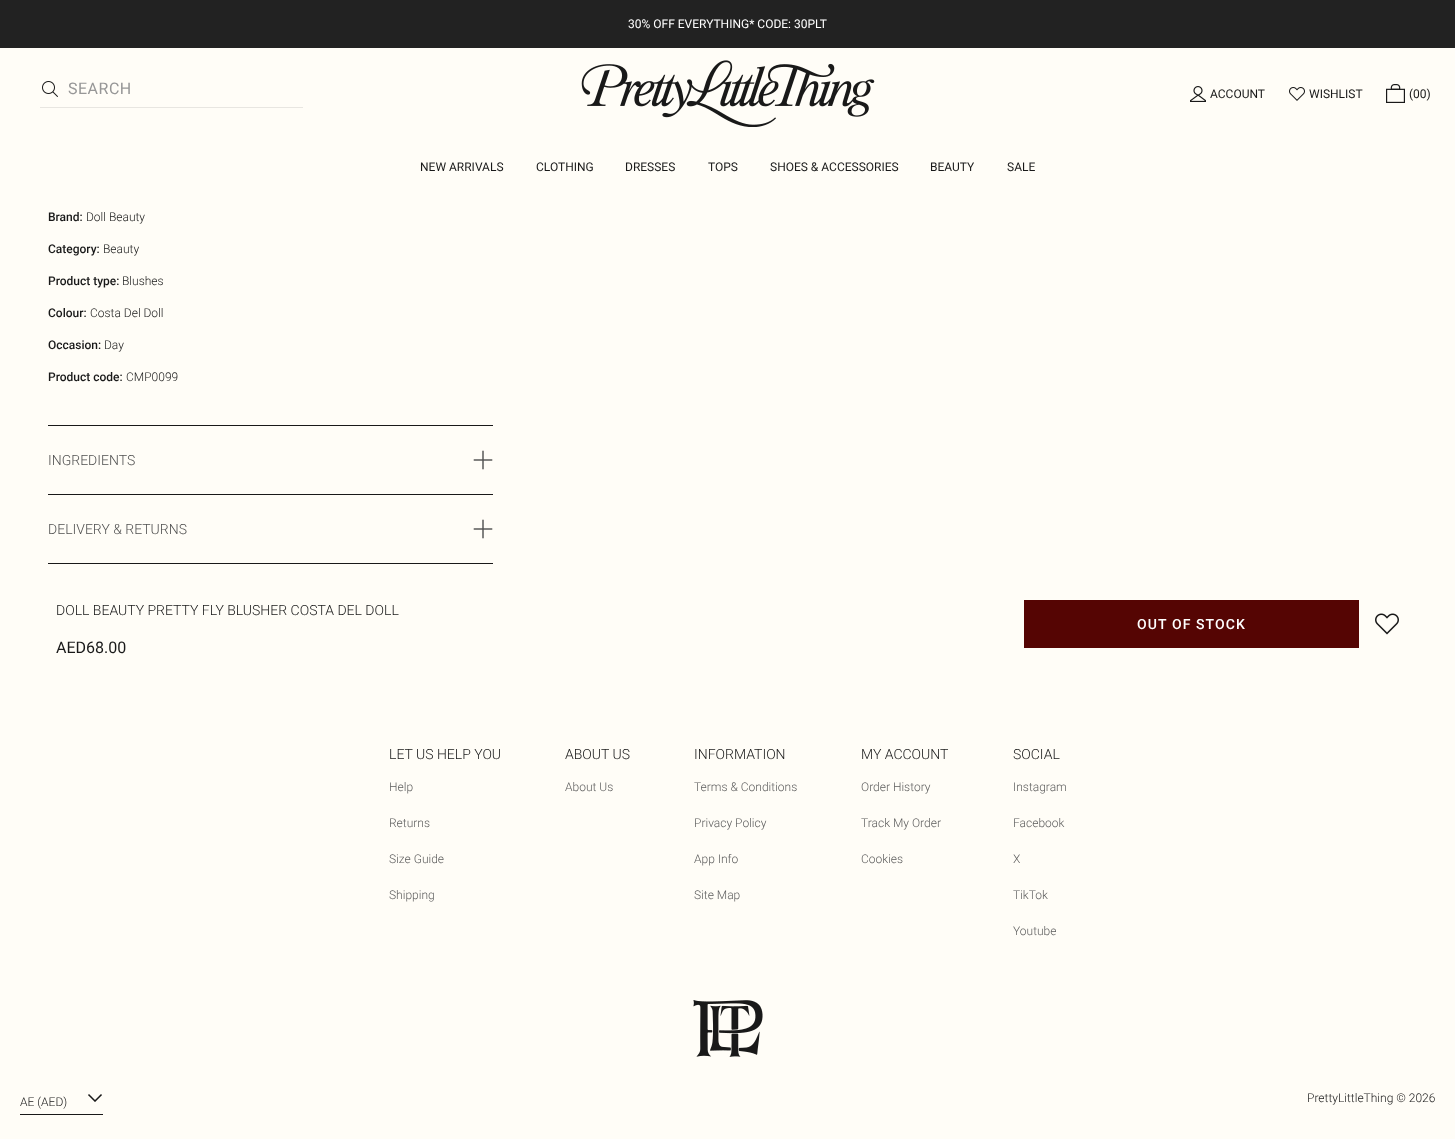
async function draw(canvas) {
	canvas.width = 1455;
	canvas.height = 1139;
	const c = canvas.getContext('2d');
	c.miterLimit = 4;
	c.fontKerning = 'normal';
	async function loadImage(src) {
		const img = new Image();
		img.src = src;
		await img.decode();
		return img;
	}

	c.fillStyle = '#fffdf7';
	c.fillRect(0, 0, 1455, 1139);
	c.fillStyle = '#222';
	c.fillRect(0, 0, 1455, 48);
	c.font = '12px Roboto';
	c.fillStyle = '#fff';
	c.fillText('30% OFF EVERYTHING* CODE: 30PLT', 628, 28);
	c.fillStyle = '#e8e6e1';
	c.fillRect(40, 107, 263, 1);
	c.drawImage(await loadImage('img1.png'), 42, 81, 16, 16);
	c.letterSpacing = '0.5px';
	c.font = '16px Roboto';
	c.fillStyle = '#979797';
	c.fillText('SEARCH', 68, 94);
	c.drawImage(await loadImage('img2.png'), 581, 60, 294, 67);
	c.drawImage(await loadImage('img3.png'), 1190, 86, 16, 16);
	c.letterSpacing = '0px';
	c.font = '12px Roboto';
	c.fillStyle = '#191919';
	c.fillText('ACCOUNT', 1210, 98);
	c.drawImage(await loadImage('img4.png'), 1289, 87, 16, 14);
	c.fillText('WISHLIST', 1309, 98);
	c.drawImage(await loadImage('img5.png'), 1386, 84, 19, 19);
	for (const [text, x, y] of [
		['(00)', 1409, 98],
		['NEW ARRIVALS', 420, 171],
		['CLOTHING', 536, 171],
		['DRESSES', 625, 171],
		['TOPS', 708, 171],
		['SHOES & ACCESSORIES', 770, 171],
		['BEAUTY', 930, 171],
		['SALE', 1007, 171],
	]) {
		c.fillText(text, x, y);
	}
	c.font = '500 12px Roboto';
	c.fillText('Brand:', 48, 221);
	c.font = '300 12px Roboto';
	c.fillText('Doll Beauty', 86, 221);
	c.font = '500 12px Roboto';
	c.fillText('Category:', 48, 253);
	c.font = '300 12px Roboto';
	c.fillText('Beauty', 103, 253);
	c.font = '500 12px Roboto';
	c.fillText('Product type:', 48, 285);
	c.font = '300 12px Roboto';
	c.fillText('Blushes', 122, 285);
	c.font = '500 12px Roboto';
	c.fillText('Colour:', 48, 317);
	c.font = '300 12px Roboto';
	c.fillText('Costa Del Doll', 90, 317);
	c.font = '500 12px Roboto';
	c.fillText('Occasion:', 48, 349);
	c.font = '300 12px Roboto';
	c.fillText('Day', 104, 349);
	c.font = '500 12px Roboto';
	c.fillText('Product code:', 48, 381);
	c.font = '300 12px Roboto';
	c.fillText('CMP0099', 126, 381);
	c.fillRect(48, 425, 445, 1);
	c.font = '300 14px Roboto';
	c.fillStyle = '#515151';
	c.fillText('INGREDIENTS', 48, 465);
	c.drawImage(await loadImage('img6.png'), 473, 450, 20, 20);
	c.fillStyle = '#191919';
	c.fillRect(48, 494, 445, 1);
	c.fillRect(48, 563, 445, 1);
	c.fillStyle = '#515151';
	c.fillText('DELIVERY & RETURNS', 48, 534);
	c.drawImage(await loadImage('img6.png'), 473, 519, 20, 20);
	c.fillStyle = '#191919';
	c.fillText('DOLL BEAUTY PRETTY FLY BLUSHER COSTA DEL DOLL', 56, 615);
	c.font = '16px Roboto';
	c.fillText('AED68.00', 56, 653);
	c.fillStyle = '#550503';
	c.fillRect(1024, 600, 335, 48);
	c.letterSpacing = '1.1px';
	c.font = '500 14px Roboto';
	c.fillStyle = '#fff';
	c.fillText('OUT OF STOCK', 1137, 629);
	c.drawImage(await loadImage('img7.png'), 1375, 613, 24, 22);
	c.letterSpacing = '0px';
	c.font = '300 14px Roboto';
	c.fillStyle = '#191919';
	c.fillText('LET US HELP YOU', 389, 759);
	c.font = '300 12px Roboto';
	c.fillStyle = '#5d5d5d';
	for (const [text, x, y] of [
		['Help', 389, 791],
		['Returns', 389, 827],
		['Size Guide', 389, 863],
		['Shipping', 389, 899],
	]) {
		c.fillText(text, x, y);
	}
	c.font = '300 14px Roboto';
	c.fillStyle = '#191919';
	c.fillText('ABOUT US', 565, 759);
	c.font = '300 12px Roboto';
	c.fillStyle = '#5d5d5d';
	c.fillText('About Us', 565, 791);
	c.font = '300 14px Roboto';
	c.fillStyle = '#191919';
	c.fillText('INFORMATION', 694, 759);
	c.font = '300 12px Roboto';
	c.fillStyle = '#5d5d5d';
	for (const [text, x, y] of [
		['Terms & Conditions', 694, 791],
		['Privacy Policy', 694, 827],
		['App Info', 694, 863],
		['Site Map', 694, 899],
	]) {
		c.fillText(text, x, y);
	}
	c.font = '300 14px Roboto';
	c.fillStyle = '#191919';
	c.fillText('MY ACCOUNT', 861, 759);
	c.font = '300 12px Roboto';
	c.fillStyle = '#5d5d5d';
	for (const [text, x, y] of [
		['Order History', 861, 791],
		['Track My Order', 861, 827],
		['Cookies', 861, 863],
	]) {
		c.fillText(text, x, y);
	}
	c.font = '300 14px Roboto';
	c.fillStyle = '#191919';
	c.fillText('SOCIAL', 1013, 759);
	c.font = '300 12px Roboto';
	c.fillStyle = '#5d5d5d';
	for (const [text, x, y] of [
		['Instagram', 1013, 791],
		['Facebook', 1013, 827],
		['X', 1013, 863],
		['TikTok', 1013, 899],
		['Youtube', 1013, 935],
	]) {
		c.fillText(text, x, y);
	}
	c.drawImage(await loadImage('img8.png'), 693, 1000, 70, 57);
	c.fillStyle = '#191919';
	c.fillRect(20, 1114, 83, 1);
	c.fillText('AE (AED)', 20, 1106);
	c.drawImage(await loadImage('img9.png'), 88, 1094, 14, 8);
	c.fillText('PrettyLittleThing © 2026', 1307, 1102);
}

draw(document.querySelector('canvas'));
